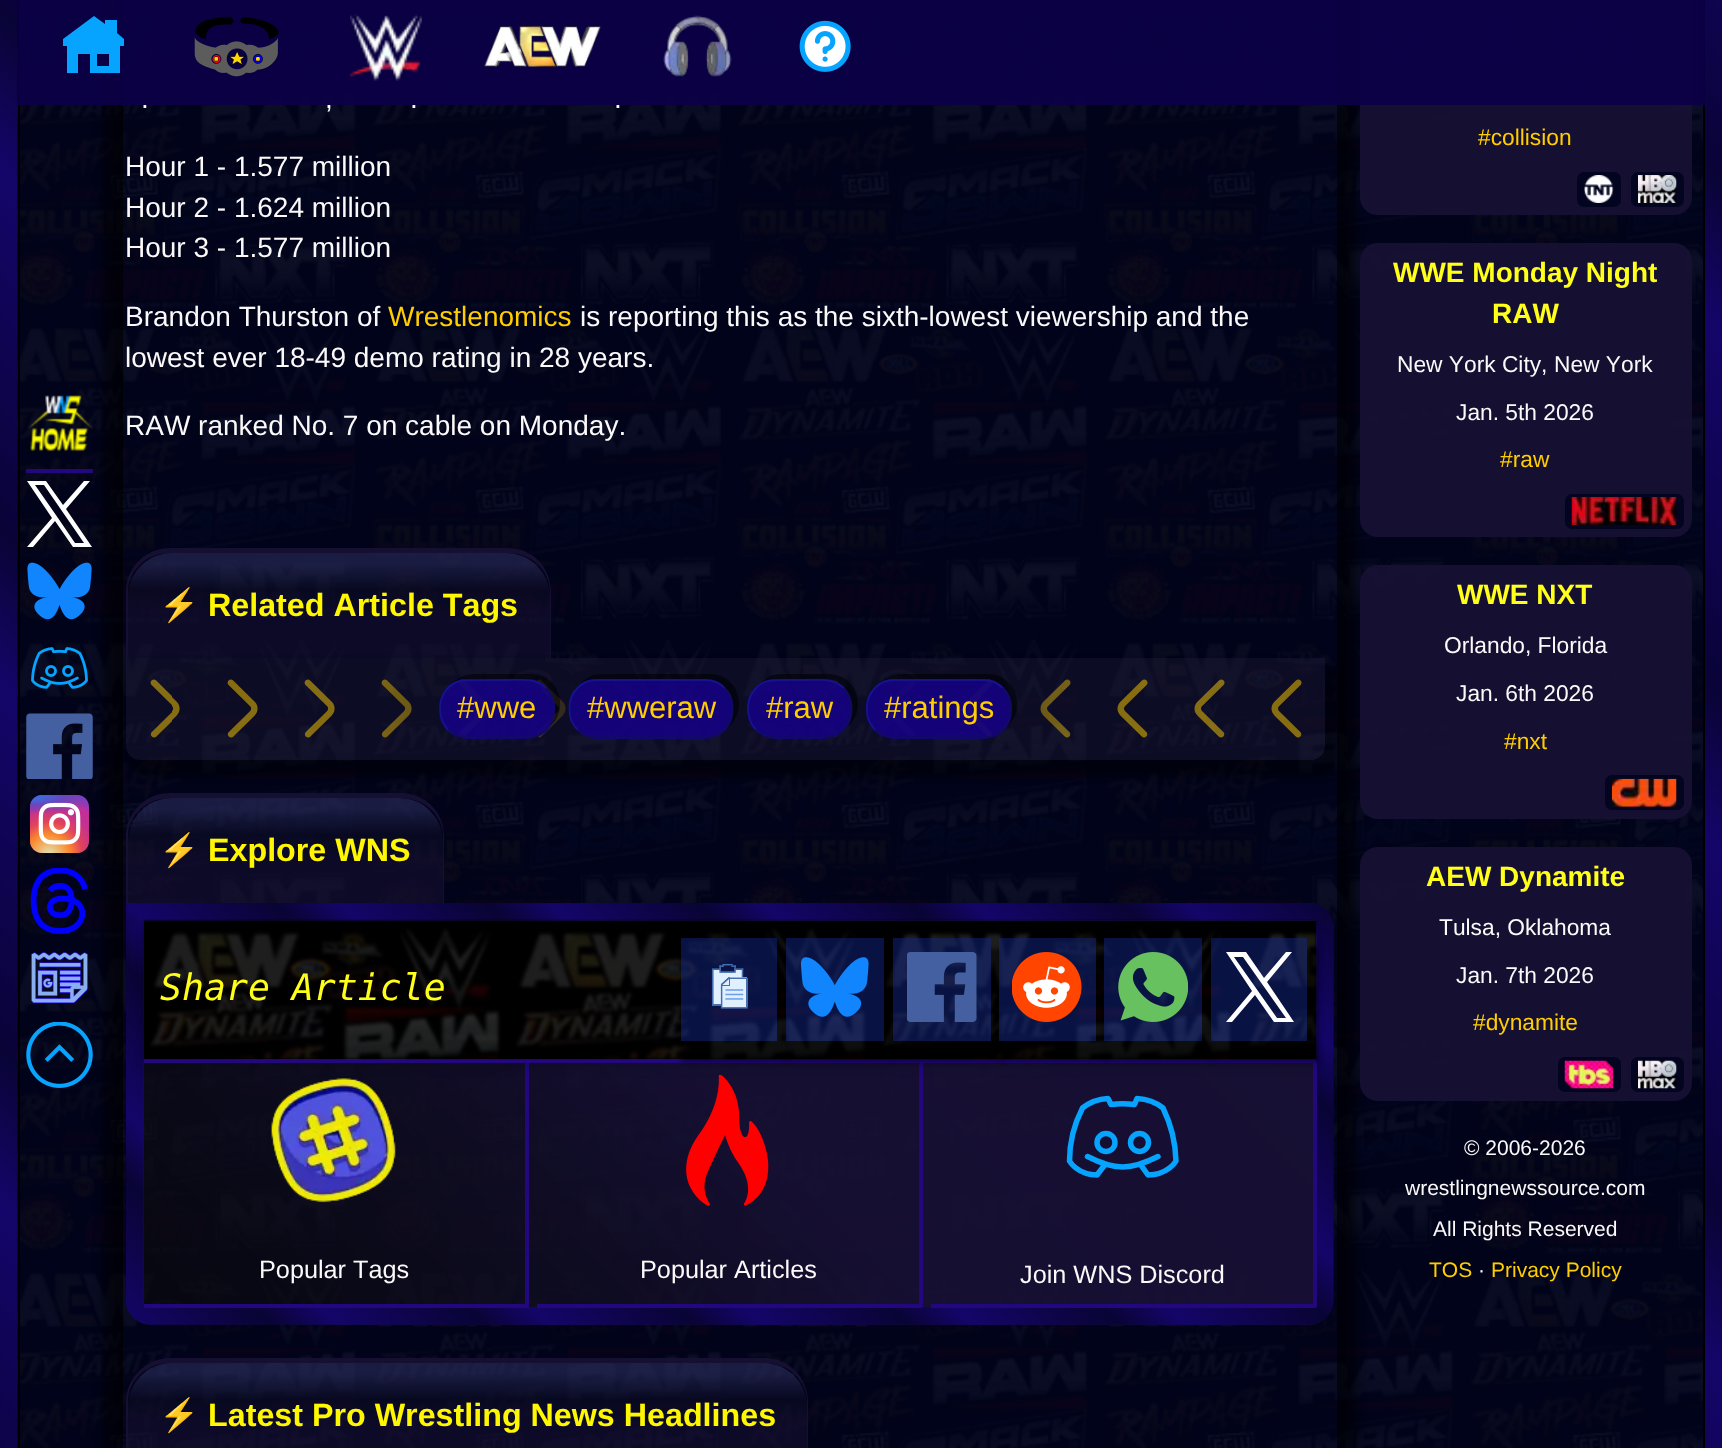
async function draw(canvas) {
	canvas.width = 1722;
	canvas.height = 1448;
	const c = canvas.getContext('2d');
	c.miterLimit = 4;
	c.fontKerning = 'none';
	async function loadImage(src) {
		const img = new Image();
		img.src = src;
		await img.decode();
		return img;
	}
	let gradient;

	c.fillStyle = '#fff';
	c.fillRect(0, 0, 1722, 1448);
	c.drawImage(await loadImage('img1.png'), 17, 0, 1686, 1448);
	c.drawImage(await loadImage('img2.png'), 0, 0, 1722, 1448);
	c.save();
	c.beginPath();
	c.moveTo(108, 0);
	c.lineTo(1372, 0);
	c.lineTo(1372, 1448);
	c.lineTo(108, 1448);
	c.closePath();
	c.moveTo(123, -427);
	c.lineTo(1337, -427);
	c.lineTo(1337, 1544);
	c.lineTo(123, 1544);
	c.closePath();
	c.clip('evenodd');
	c.fillStyle = '#0000008c';
	c.filter = 'blur(5px)';
	c.beginPath();
	c.rect(124, -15, 1232, 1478);
	c.fill();
	c.filter = 'none';
	c.restore();
	c.save();
	c.beginPath();
	c.moveTo(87, 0);
	c.lineTo(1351, 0);
	c.lineTo(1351, 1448);
	c.lineTo(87, 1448);
	c.closePath();
	c.moveTo(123, -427);
	c.lineTo(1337, -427);
	c.lineTo(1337, 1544);
	c.lineTo(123, 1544);
	c.closePath();
	c.clip('evenodd');
	c.fillStyle = '#0000008c';
	c.filter = 'blur(5px)';
	c.beginPath();
	c.rect(103, -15, 1232, 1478);
	c.fill();
	c.filter = 'none';
	c.restore();
	c.fillStyle = '#171034e8';
	c.beginPath();
	c.roundRect(1360, -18, 332, 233, 18);
	c.fill();
	c.fillStyle = '#00031dd9';
	c.beginPath();
	c.roundRect(1577, 172, 44, 35, 7);
	c.fill();
	c.drawImage(await loadImage('img27.png'), 1584, 175, 30, 28);
	c.beginPath();
	c.roundRect(1631, 172, 53, 35, 7);
	c.fill();
	c.drawImage(await loadImage('img28.png'), 1638, 175, 39, 28);
	c.fillStyle = '#171034e8';
	c.beginPath();
	c.roundRect(1360, 243, 332, 294, 18);
	c.fill();
	c.fillStyle = '#00031dd9';
	c.beginPath();
	c.roundRect(1565, 494, 119, 35, 7);
	c.fill();
	c.drawImage(await loadImage('img29.png'), 1571, 497, 106, 28);
	c.fillStyle = '#171034e8';
	c.beginPath();
	c.roundRect(1360, 565, 332, 254, 18);
	c.fill();
	c.fillStyle = '#00031dd9';
	c.beginPath();
	c.roundRect(1605, 775, 79, 35, 7);
	c.fill();
	c.drawImage(await loadImage('img30.png'), 1611, 778, 66, 29);
	c.fillStyle = '#171034e8';
	c.beginPath();
	c.roundRect(1360, 847, 332, 254, 18);
	c.fill();
	c.fillStyle = '#00031dd9';
	c.beginPath();
	c.roundRect(1558, 1057, 63, 35, 7);
	c.fill();
	c.drawImage(await loadImage('img31.png'), 1564, 1060, 50, 29);
	c.beginPath();
	c.roundRect(1631, 1057, 53, 35, 7);
	c.fill();
	c.drawImage(await loadImage('img32.png'), 1638, 1060, 39, 29);
	c.strokeStyle = '#000';
	c.lineWidth = 2;
	c.strokeRect(19, -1, 1685, 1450);
	c.fillStyle = '#0b0048e6';
	c.fillRect(18, 0, 1687, 105);
	c.fillStyle = '#06a4ff';
	c.beginPath();
	c.moveTo(94, 16);
	c.lineTo(63, 39);
	c.lineTo(63, 46);
	c.lineTo(67, 46);
	c.lineTo(67, 73);
	c.lineTo(78, 73);
	c.lineTo(78, 54);
	c.lineTo(90, 54);
	c.lineTo(90, 73);
	c.lineTo(120, 73);
	c.lineTo(120, 46);
	c.lineTo(124, 46);
	c.lineTo(124, 39);
	c.lineTo(117, 33);
	c.lineTo(117, 20);
	c.lineTo(105, 20);
	c.lineTo(105, 24);
	c.closePath();
	c.moveTo(97, 54);
	c.lineTo(109, 54);
	c.lineTo(109, 66);
	c.lineTo(97, 66);
	c.closePath();
	c.fill('evenodd');
	c.drawImage(await loadImage('img3.png'), 194, 17, 85, 60);
	c.drawImage(await loadImage('img4.png'), 350, 14, 72, 67);
	c.drawImage(await loadImage('img5.png'), 484, 26, 117, 41);
	c.drawImage(await loadImage('img6.png'), 663, 15, 69, 62);
	c.drawImage(await loadImage('img7.png'), 799, 20, 52, 52);
	c.drawImage(await loadImage('img8.png'), 28, 395, 65, 57);
	c.fillStyle = '#22077e';
	c.fillRect(26, 469, 67, 4);
	c.fillStyle = '#fff';
	c.beginPath();
	c.moveTo(66, 509);
	c.lineTo(90, 481);
	c.lineTo(84, 481);
	c.lineTo(63, 505);
	c.lineTo(46, 481);
	c.lineTo(27, 481);
	c.lineTo(52, 518);
	c.lineTo(27, 547);
	c.lineTo(33, 547);
	c.lineTo(55, 521);
	c.lineTo(73, 547);
	c.lineTo(92, 547);
	c.closePath();
	c.moveTo(58, 518);
	c.lineTo(35, 485);
	c.lineTo(44, 485);
	c.lineTo(84, 543);
	c.lineTo(75, 543);
	c.closePath();
	c.fill();
	c.drawImage(await loadImage('img9.png'), 27, 562, 65, 58);
	c.drawImage(await loadImage('img10.png'), 31, 647, 57, 42);
	c.drawImage(await loadImage('img11.png'), 26, 713, 67, 66);
	c.drawImage(await loadImage('img12.png'), 30, 795, 59, 58);
	c.drawImage(await loadImage('img13.png'), 30, 868, 58, 66);
	c.drawImage(await loadImage('img14.png'), 31, 952, 57, 52);
	c.drawImage(await loadImage('img15.png'), 26, 1022, 67, 66);
	c.font = '28px Liberation Sans';
	c.fillStyle = '#fbf9f9';
	for (const [text, x, y] of [
		['.', 141, 108],
		[',', 325, 108],
		['.', 410, 108],
		['.', 614, 108],
		['Hour 1 - 1.577 million', 125, 176],
		['Hour 2 - 1.624 million', 125, 217],
		['Hour 3 - 1.577 million', 125, 257],
		['Brandon Thurston of', 125, 326],
	]) {
		c.fillText(text, x, y);
	}
	c.fillStyle = '#ffce00';
	c.fillText('Wrestlenomics', 388, 326);
	c.fillStyle = '#fbf9f9';
	for (const [text, x, y] of [
		['is reporting this as the sixth-lowest viewership and the', 580, 326],
		['lowest ever 18-49 demo rating in 28 years.', 125, 367],
		['RAW ranked No. 7 on cable on Monday.', 125, 435],
	]) {
		c.fillText(text, x, y);
	}
	c.fillStyle = '#171034e8';
	c.beginPath();
	c.moveTo(170, 548);
	c.lineTo(508, 548);
	c.bezierCurveTo(532, 548, 551, 567, 551, 592);
	c.lineTo(551, 658);
	c.lineTo(126, 658);
	c.lineTo(126, 592);
	c.bezierCurveTo(126, 567, 146, 548, 170, 548);
	c.closePath();
	c.moveTo(170, 553);
	c.lineTo(508, 553);
	c.bezierCurveTo(531, 553, 550, 570, 550, 592);
	c.lineTo(550, 658);
	c.lineTo(128, 658);
	c.lineTo(128, 592);
	c.bezierCurveTo(128, 570, 147, 553, 170, 553);
	c.closePath();
	c.fill('evenodd');
	gradient = c.createLinearGradient(339, 553, 339, 658);
	gradient.addColorStop(0.1, '#2a2c5d99');
	gradient.addColorStop(0.35, '#0c0c2599');
	gradient.addColorStop(0.6, '#1710348c');
	c.fillStyle = gradient;
	c.beginPath();
	c.roundRect(128, 553, 422, 105, [44, 44, 0, 0]);
	c.fill();
	c.font = 'bold 32.25px Noto Color Emoji';
	c.fillStyle = '#fff700';
	c.fillText('⚡', 159, 616);
	c.font = 'bold 32.25px Liberation Sans';
	c.fillText('Related Article Tags', 208, 616);
	c.save();
	c.beginPath();
	c.moveTo(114, 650);
	c.lineTo(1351, 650);
	c.lineTo(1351, 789);
	c.lineTo(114, 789);
	c.closePath();
	c.moveTo(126, 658);
	c.lineTo(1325, 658);
	c.lineTo(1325, 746);
	c.bezierCurveTo(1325, 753.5, 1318.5, 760, 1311, 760);
	c.lineTo(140, 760);
	c.bezierCurveTo(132.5, 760, 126, 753.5, 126, 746);
	c.closePath();
	c.clip('evenodd');
	c.fillStyle = '#0000006b';
	c.filter = 'blur(3.5px)';
	c.beginPath();
	c.roundRect(126, 662, 1213, 115, 21);
	c.fill();
	c.filter = 'none';
	c.restore();
	c.fillStyle = '#2922434a';
	c.beginPath();
	c.roundRect(126, 658, 1199, 102, [0, 0, 14, 14]);
	c.fill();
	c.drawImage(await loadImage('img16.png'), 150, 679, 492, 59);
	c.drawImage(await loadImage('img17.png'), 809, 679, 493, 59);
	c.fillStyle = '#00000082';
	c.beginPath();
	c.moveTo(473, 674);
	c.lineTo(532, 674);
	c.bezierCurveTo(547, 674, 560, 687, 560, 702);
	c.lineTo(560, 705);
	c.bezierCurveTo(560, 714, 556, 722, 549, 727);
	c.bezierCurveTo(553, 722, 555, 717, 555, 710);
	c.lineTo(555, 707);
	c.bezierCurveTo(555, 692, 542, 679, 527, 679);
	c.lineTo(467, 679);
	c.bezierCurveTo(462, 679, 456, 681, 452, 684);
	c.bezierCurveTo(457, 678, 465, 674, 473, 674);
	c.closePath();
	c.fill();
	c.fillStyle = '#150280ed';
	c.beginPath();
	c.roundRect(439, 679, 116, 60, 28);
	c.fill();
	c.beginPath();
	c.moveTo(546, 688);
	c.bezierCurveTo(552, 694, 554, 702, 554, 710.5);
	c.bezierCurveTo(553.5, 723.5, 545, 734.5, 532, 737);
	c.lineTo(487, 737.5);
	c.bezierCurveTo(473.5, 737.5, 458.5, 740, 448, 729.5);
	c.strokeStyle = '#0f0d5f';
	c.lineWidth = 1.8;
	c.stroke();
	c.beginPath();
	c.moveTo(448, 729.5);
	c.bezierCurveTo(442, 723.5, 440, 715.5, 440, 707);
	c.bezierCurveTo(440.5, 694, 449, 683, 462, 680.5);
	c.lineTo(507, 680);
	c.bezierCurveTo(520.5, 680, 535.5, 677.5, 546, 688);
	c.strokeStyle = '#16138f';
	c.stroke();
	c.font = '31px Liberation Sans';
	c.fillStyle = '#ffce00';
	c.fillText('#wwe', 457, 718);
	c.fillStyle = '#00000082';
	c.beginPath();
	c.moveTo(602, 674);
	c.lineTo(711, 674);
	c.bezierCurveTo(726, 674, 739, 687, 739, 702);
	c.lineTo(739, 705);
	c.bezierCurveTo(739, 714, 734, 723, 727, 728);
	c.bezierCurveTo(731, 723, 733, 717, 733, 710);
	c.lineTo(733, 707);
	c.bezierCurveTo(733, 692, 721, 679, 705, 679);
	c.lineTo(597, 679);
	c.bezierCurveTo(591, 679, 585, 681, 580, 684);
	c.bezierCurveTo(585, 678, 593, 674, 602, 674);
	c.closePath();
	c.fill();
	c.fillStyle = '#150280ed';
	c.beginPath();
	c.roundRect(569, 679, 164, 60, 28);
	c.fill();
	c.beginPath();
	c.moveTo(724.5, 688);
	c.bezierCurveTo(729.5, 693, 732.5, 700, 732.5, 707);
	c.lineTo(732.5, 710.5);
	c.bezierCurveTo(732.5, 717.5, 729.5, 724.5, 724.5, 729.5);
	c.bezierCurveTo(719.5, 735, 712.5, 737.5, 705, 737.5);
	c.lineTo(597, 737.5);
	c.bezierCurveTo(589.5, 737.5, 582.5, 735, 577.5, 729.5);
	c.strokeStyle = '#0f0d5f';
	c.stroke();
	c.beginPath();
	c.moveTo(577.5, 729.5);
	c.bezierCurveTo(572.5, 724.5, 569.5, 717.5, 569.5, 710.5);
	c.lineTo(569.5, 707);
	c.bezierCurveTo(569.5, 700, 572.5, 693, 577.5, 688);
	c.bezierCurveTo(582.5, 682.5, 589.5, 680, 597, 680);
	c.lineTo(705, 680);
	c.bezierCurveTo(712.5, 680, 719.5, 682.5, 724.5, 688);
	c.strokeStyle = '#16138f';
	c.stroke();
	c.fillStyle = '#ffce00';
	c.fillText('#wweraw', 587, 718);
	c.fillStyle = '#00000082';
	c.beginPath();
	c.moveTo(781, 674);
	c.lineTo(814, 674);
	c.bezierCurveTo(821, 674, 829, 673, 836, 675);
	c.bezierCurveTo(860, 680, 866, 714, 846, 728);
	c.bezierCurveTo(858, 713, 853, 689, 835, 681);
	c.bezierCurveTo(826, 677, 810, 679, 800, 679);
	c.lineTo(783, 679);
	c.bezierCurveTo(775, 679, 767, 679, 760, 684);
	c.bezierCurveTo(765, 678, 773, 674, 781, 674);
	c.closePath();
	c.fill();
	c.fillStyle = '#150280ed';
	c.beginPath();
	c.roundRect(747, 679, 105, 60, 28);
	c.fill();
	c.beginPath();
	c.moveTo(843.5, 688);
	c.bezierCurveTo(849.5, 694, 851.5, 702, 851.5, 710.5);
	c.bezierCurveTo(851, 717, 849.5, 723, 845, 727.5);
	c.bezierCurveTo(837.5, 737.5, 828, 737.5, 816, 737.5);
	c.lineTo(791.5, 737.5);
	c.bezierCurveTo(779, 737.5, 766, 739.5, 756, 729.5);
	c.strokeStyle = '#0f0d5f';
	c.stroke();
	c.beginPath();
	c.moveTo(756, 729.5);
	c.bezierCurveTo(750, 723.5, 748, 715.5, 748, 707);
	c.bezierCurveTo(748.5, 700.5, 750, 694.5, 754.5, 690);
	c.bezierCurveTo(762, 680, 771.5, 680, 783.5, 680);
	c.lineTo(808, 680);
	c.bezierCurveTo(820.5, 680, 833.5, 678, 843.5, 688);
	c.strokeStyle = '#16138f';
	c.stroke();
	c.fillStyle = '#ffce00';
	c.fillText('#raw', 766, 718);
	c.fillStyle = '#00000082';
	c.beginPath();
	c.moveTo(900, 674);
	c.lineTo(989, 674);
	c.bezierCurveTo(1004, 674, 1017, 687, 1017, 702);
	c.lineTo(1017, 705);
	c.bezierCurveTo(1017, 714, 1013, 722, 1006, 727);
	c.bezierCurveTo(1009, 723, 1012, 717, 1012, 710);
	c.lineTo(1012, 707);
	c.bezierCurveTo(1012, 692, 999, 679, 984, 679);
	c.lineTo(894, 679);
	c.bezierCurveTo(889, 679, 883, 681, 879, 684);
	c.bezierCurveTo(884, 678, 892, 674, 900, 674);
	c.closePath();
	c.fill();
	c.fillStyle = '#150280ed';
	c.beginPath();
	c.roundRect(866, 679, 146, 60, 28);
	c.fill();
	c.beginPath();
	c.moveTo(1002.5, 688);
	c.bezierCurveTo(1008, 693, 1010.5, 700, 1010.5, 707);
	c.lineTo(1010.5, 710.5);
	c.bezierCurveTo(1010.5, 717.5, 1008, 724.5, 1002.5, 729.5);
	c.bezierCurveTo(997.5, 735, 990.5, 737.5, 983.5, 737.5);
	c.lineTo(894, 737.5);
	c.bezierCurveTo(887, 737.5, 880, 735, 875, 729.5);
	c.strokeStyle = '#0f0d5f';
	c.stroke();
	c.beginPath();
	c.moveTo(875, 729.5);
	c.bezierCurveTo(870, 724.5, 867, 717.5, 867, 710.5);
	c.lineTo(867, 707);
	c.bezierCurveTo(867, 700, 870, 693, 875, 688);
	c.bezierCurveTo(880, 682.5, 887, 680, 894, 680);
	c.lineTo(983.5, 680);
	c.bezierCurveTo(990.5, 680, 997.5, 682.5, 1002.5, 688);
	c.strokeStyle = '#16138f';
	c.stroke();
	c.fillStyle = '#ffce00';
	c.fillText('#ratings', 884, 718);
	c.fillStyle = '#171034e8';
	c.beginPath();
	c.moveTo(170, 793);
	c.lineTo(401, 793);
	c.bezierCurveTo(425, 793, 444, 812, 444, 836);
	c.lineTo(444, 903);
	c.lineTo(126, 903);
	c.lineTo(126, 836);
	c.bezierCurveTo(126, 812, 146, 793, 170, 793);
	c.closePath();
	c.moveTo(170, 798);
	c.lineTo(401, 798);
	c.bezierCurveTo(424, 798, 443, 815, 443, 836);
	c.lineTo(443, 903);
	c.lineTo(128, 903);
	c.lineTo(128, 836);
	c.bezierCurveTo(128, 815, 147, 798, 170, 798);
	c.closePath();
	c.fill('evenodd');
	gradient = c.createLinearGradient(285, 798, 285, 903);
	gradient.addColorStop(0.1, '#2a2c5d99');
	gradient.addColorStop(0.35, '#0c0c2599');
	gradient.addColorStop(0.6, '#1710348c');
	c.fillStyle = gradient;
	c.beginPath();
	c.roundRect(128, 798, 315, 105, [44, 44, 0, 0]);
	c.fill();
	c.font = 'bold 32.25px Noto Color Emoji';
	c.fillStyle = '#fff700';
	c.fillText('⚡', 159, 861);
	c.font = 'bold 32.25px Liberation Sans';
	c.fillText('Explore WNS', 208, 861);
	c.drawImage(await loadImage('img18.png'), 126, 903, 1208, 422);
	c.fillStyle = '#22077e';
	c.fillRect(525, 1062, 4, 245);
	c.drawImage(await loadImage('img25.png'), 271, 1078, 125, 125);
	c.fillRect(919, 1062, 4, 245);
	c.drawImage(await loadImage('img26.png'), 686, 1075, 83, 131);
	c.fillRect(1313, 1062, 4, 245);
	c.fillStyle = '#0000001a';
	c.filter = 'blur(5px)';
	c.beginPath();
	c.rect(144, 928, 1172, 141);
	c.fill();
	c.filter = 'none';
	c.fillStyle = '#000';
	c.fillRect(144, 921, 1172, 138);
	c.fillStyle = '#22077e';
	c.fillRect(144, 1059, 1172, 4);
	c.drawImage(await loadImage('img19.png'), 142, 919, 1175, 141);
	c.font = 'italic 36.5px DejaVu Sans Mono';
	c.fillStyle = '#ffff1a';
	c.fillText('Share Article', 160, 1000);
	c.save();
	c.beginPath();
	c.moveTo(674, 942);
	c.lineTo(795, 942);
	c.lineTo(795, 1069);
	c.lineTo(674, 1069);
	c.closePath();
	c.moveTo(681, 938);
	c.lineTo(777, 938);
	c.lineTo(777, 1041);
	c.lineTo(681, 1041);
	c.closePath();
	c.clip('evenodd');
	c.fillStyle = '#0000007d';
	c.filter = 'blur(2px)';
	c.beginPath();
	c.rect(681, 949, 107, 113);
	c.fill();
	c.filter = 'none';
	c.restore();
	c.fillStyle = '#12288f78';
	c.fillRect(681, 938, 96, 103);
	c.drawImage(await loadImage('img20.png'), 711, 963, 37, 46);
	c.save();
	c.beginPath();
	c.moveTo(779, 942);
	c.lineTo(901, 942);
	c.lineTo(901, 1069);
	c.lineTo(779, 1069);
	c.closePath();
	c.moveTo(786, 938);
	c.lineTo(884, 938);
	c.lineTo(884, 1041);
	c.lineTo(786, 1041);
	c.closePath();
	c.clip('evenodd');
	c.fillStyle = '#0000007d';
	c.filter = 'blur(2px)';
	c.beginPath();
	c.rect(786, 949, 108, 113);
	c.fill();
	c.filter = 'none';
	c.restore();
	c.fillRect(786, 938, 98, 103);
	c.drawImage(await loadImage('img21.png'), 800, 957, 69, 60);
	c.save();
	c.beginPath();
	c.moveTo(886, 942);
	c.lineTo(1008, 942);
	c.lineTo(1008, 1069);
	c.lineTo(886, 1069);
	c.closePath();
	c.moveTo(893, 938);
	c.lineTo(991, 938);
	c.lineTo(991, 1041);
	c.lineTo(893, 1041);
	c.closePath();
	c.clip('evenodd');
	c.fillStyle = '#0000007d';
	c.filter = 'blur(2px)';
	c.beginPath();
	c.rect(893, 949, 108, 113);
	c.fill();
	c.filter = 'none';
	c.restore();
	c.fillRect(893, 938, 98, 103);
	c.drawImage(await loadImage('img22.png'), 907, 952, 70, 70);
	c.save();
	c.beginPath();
	c.moveTo(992, 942);
	c.lineTo(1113, 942);
	c.lineTo(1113, 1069);
	c.lineTo(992, 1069);
	c.closePath();
	c.moveTo(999, 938);
	c.lineTo(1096, 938);
	c.lineTo(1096, 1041);
	c.lineTo(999, 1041);
	c.closePath();
	c.clip('evenodd');
	c.fillStyle = '#0000007d';
	c.filter = 'blur(2px)';
	c.beginPath();
	c.rect(999, 949, 107, 113);
	c.fill();
	c.filter = 'none';
	c.restore();
	c.fillRect(999, 938, 97, 103);
	c.drawImage(await loadImage('img23.png'), 1012, 952, 70, 70);
	c.save();
	c.beginPath();
	c.moveTo(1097, 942);
	c.lineTo(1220, 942);
	c.lineTo(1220, 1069);
	c.lineTo(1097, 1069);
	c.closePath();
	c.moveTo(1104, 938);
	c.lineTo(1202, 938);
	c.lineTo(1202, 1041);
	c.lineTo(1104, 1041);
	c.closePath();
	c.clip('evenodd');
	c.fillStyle = '#0000007d';
	c.filter = 'blur(2px)';
	c.beginPath();
	c.rect(1104, 949, 109, 113);
	c.fill();
	c.filter = 'none';
	c.restore();
	c.fillRect(1104, 938, 98, 103);
	c.drawImage(await loadImage('img24.png'), 1118, 952, 70, 70);
	c.save();
	c.beginPath();
	c.moveTo(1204, 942);
	c.lineTo(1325, 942);
	c.lineTo(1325, 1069);
	c.lineTo(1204, 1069);
	c.closePath();
	c.moveTo(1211, 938);
	c.lineTo(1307, 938);
	c.lineTo(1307, 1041);
	c.lineTo(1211, 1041);
	c.closePath();
	c.clip('evenodd');
	c.fillStyle = '#0000007d';
	c.filter = 'blur(2px)';
	c.beginPath();
	c.rect(1211, 949, 107, 113);
	c.fill();
	c.filter = 'none';
	c.restore();
	c.fillRect(1211, 938, 96, 103);
	c.fillStyle = '#fff';
	c.beginPath();
	c.moveTo(1267, 982);
	c.lineTo(1292, 952);
	c.lineTo(1286, 952);
	c.lineTo(1264, 978);
	c.lineTo(1246, 952);
	c.lineTo(1226, 952);
	c.lineTo(1252, 991);
	c.lineTo(1226, 1022);
	c.lineTo(1232, 1022);
	c.lineTo(1255, 995);
	c.lineTo(1274, 1022);
	c.lineTo(1294, 1022);
	c.closePath();
	c.moveTo(1258, 991);
	c.lineTo(1234, 957);
	c.lineTo(1243, 957);
	c.lineTo(1286, 1018);
	c.lineTo(1277, 1018);
	c.closePath();
	c.fill();
	c.fillStyle = '#22077e';
	c.fillRect(144, 1304, 385, 4);
	c.font = '25.25px Liberation Sans';
	c.fillStyle = '#fbf9f9';
	c.fillText('Popular Tags', 259, 1278);
	c.fillStyle = '#22077e';
	c.fillRect(537, 1304, 385, 4);
	c.fillStyle = '#fbf9f9';
	c.fillText('Popular Articles', 640, 1278);
	c.fillStyle = '#22077e';
	c.fillRect(931, 1304, 385, 4);
	c.beginPath();
	c.moveTo(1105, 1164.5);
	c.lineTo(1097, 1175);
	c.bezierCurveTo(1077, 1174.5, 1069.5, 1161, 1069.5, 1161);
	c.bezierCurveTo(1069.5, 1142.5, 1074, 1124.5, 1082.5, 1108);
	c.bezierCurveTo(1090, 1102, 1099, 1099, 1108, 1098.5);
	c.lineTo(1111, 1104.5);
	c.bezierCurveTo(1118.5, 1103.5, 1126.5, 1103.5, 1134.5, 1104.5);
	c.lineTo(1137, 1098.5);
	c.bezierCurveTo(1146.5, 1099, 1155.5, 1102, 1163, 1108);
	c.bezierCurveTo(1171, 1124.5, 1175.5, 1142.5, 1176, 1161);
	c.bezierCurveTo(1176, 1161, 1168.5, 1174.5, 1148, 1175);
	c.lineTo(1140.5, 1164.5);
	c.moveTo(1158, 1156.5);
	c.bezierCurveTo(1130, 1170.5, 1115, 1170.5, 1087.5, 1156.5);
	c.strokeStyle = '#06a4ff';
	c.lineWidth = 5.5;
	c.lineCap = 'round';
	c.lineJoin = 'round';
	c.stroke();
	c.beginPath();
	c.arc(1106, 1142.5, 9, 0, 2 * Math.PI);
	c.stroke();
	c.beginPath();
	c.arc(1139.5, 1142.5, 9, 0, 2 * Math.PI);
	c.stroke();
	c.fillStyle = '#fbf9f9';
	c.fillText('Join WNS Discord', 1020, 1283);
	c.fillStyle = '#171034e8';
	c.beginPath();
	c.moveTo(170, 1358);
	c.lineTo(765, 1358);
	c.bezierCurveTo(789, 1358, 808, 1378, 808, 1402);
	c.lineTo(808, 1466);
	c.lineTo(126, 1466);
	c.lineTo(126, 1402);
	c.bezierCurveTo(126, 1378, 146, 1358, 170, 1358);
	c.closePath();
	c.moveTo(170, 1363);
	c.lineTo(765, 1363);
	c.bezierCurveTo(788, 1363, 807, 1380, 807, 1402);
	c.lineTo(807, 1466);
	c.lineTo(128, 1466);
	c.lineTo(128, 1402);
	c.bezierCurveTo(128, 1380, 147, 1363, 170, 1363);
	c.closePath();
	c.fill('evenodd');
	gradient = c.createLinearGradient(467, 1363, 467, 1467);
	gradient.addColorStop(0.1, '#2a2c5d99');
	gradient.addColorStop(0.35, '#0c0c2599');
	gradient.addColorStop(0.6, '#1710348c');
	c.fillStyle = gradient;
	c.beginPath();
	c.moveTo(172, 1363);
	c.lineTo(763, 1363);
	c.bezierCurveTo(787.5, 1363, 807, 1382.5, 807, 1407);
	c.lineTo(807, 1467);
	c.lineTo(128, 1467);
	c.lineTo(128, 1407);
	c.bezierCurveTo(128, 1382.5, 147.5, 1363, 172, 1363);
	c.closePath();
	c.fill();
	c.font = 'bold 32.25px Noto Color Emoji';
	c.fillStyle = '#fff700';
	c.fillText('⚡', 159, 1426);
	c.font = 'bold 32.25px Liberation Sans';
	c.fillText('Latest Pro Wrestling News Headlines', 208, 1426);
	c.font = '22.75px Liberation Sans';
	c.fillStyle = '#ffce00';
	c.fillText('#collision', 1478, 145);
	c.font = 'bold 28px Liberation Sans';
	c.fillStyle = '#ffff1a';
	c.fillText('WWE Monday Night', 1393, 282);
	c.fillText('RAW', 1492, 323);
	c.font = '22.75px Liberation Sans';
	c.fillStyle = '#fbf9f9';
	c.fillText('New York City,', 1397, 372);
	c.fillText('New York', 1554, 372);
	c.fillText('Jan. 5th 2026', 1456, 420);
	c.fillStyle = '#ffce00';
	c.fillText('#raw', 1500, 467);
	c.font = 'bold 28px Liberation Sans';
	c.fillStyle = '#ffff1a';
	c.fillText('WWE NXT', 1457, 604);
	c.font = '22.75px Liberation Sans';
	c.fillStyle = '#fbf9f9';
	c.fillText('Orlando, Florida', 1444, 653);
	c.fillText('Jan. 6th 2026', 1456, 701);
	c.fillStyle = '#ffce00';
	c.fillText('#nxt', 1504, 749);
	c.font = 'bold 28px Liberation Sans';
	c.fillStyle = '#ffff1a';
	c.fillText('AEW Dynamite', 1426, 886);
	c.font = '22.75px Liberation Sans';
	c.fillStyle = '#fbf9f9';
	c.fillText('Tulsa, Oklahoma', 1439, 935);
	c.fillText('Jan. 7th 2026', 1456, 983);
	c.fillStyle = '#ffce00';
	c.fillText('#dynamite', 1473, 1030);
	c.font = '21px Liberation Sans';
	c.fillStyle = '#fbf9f9';
	for (const [text, x, y] of [
		['© 2006-2026', 1464, 1155],
		['wrestlingnewssource.com', 1405, 1195],
		['All Rights Reserved', 1433, 1236],
	]) {
		c.fillText(text, x, y);
	}
	c.fillStyle = '#ffce00';
	c.fillText('TOS', 1429, 1277);
	c.fillStyle = '#fbf9f9';
	c.fillText('·', 1478, 1277);
	c.fillStyle = '#ffce00';
	c.fillText('Privacy Policy', 1491, 1277);
}

draw(document.querySelector('canvas'));
